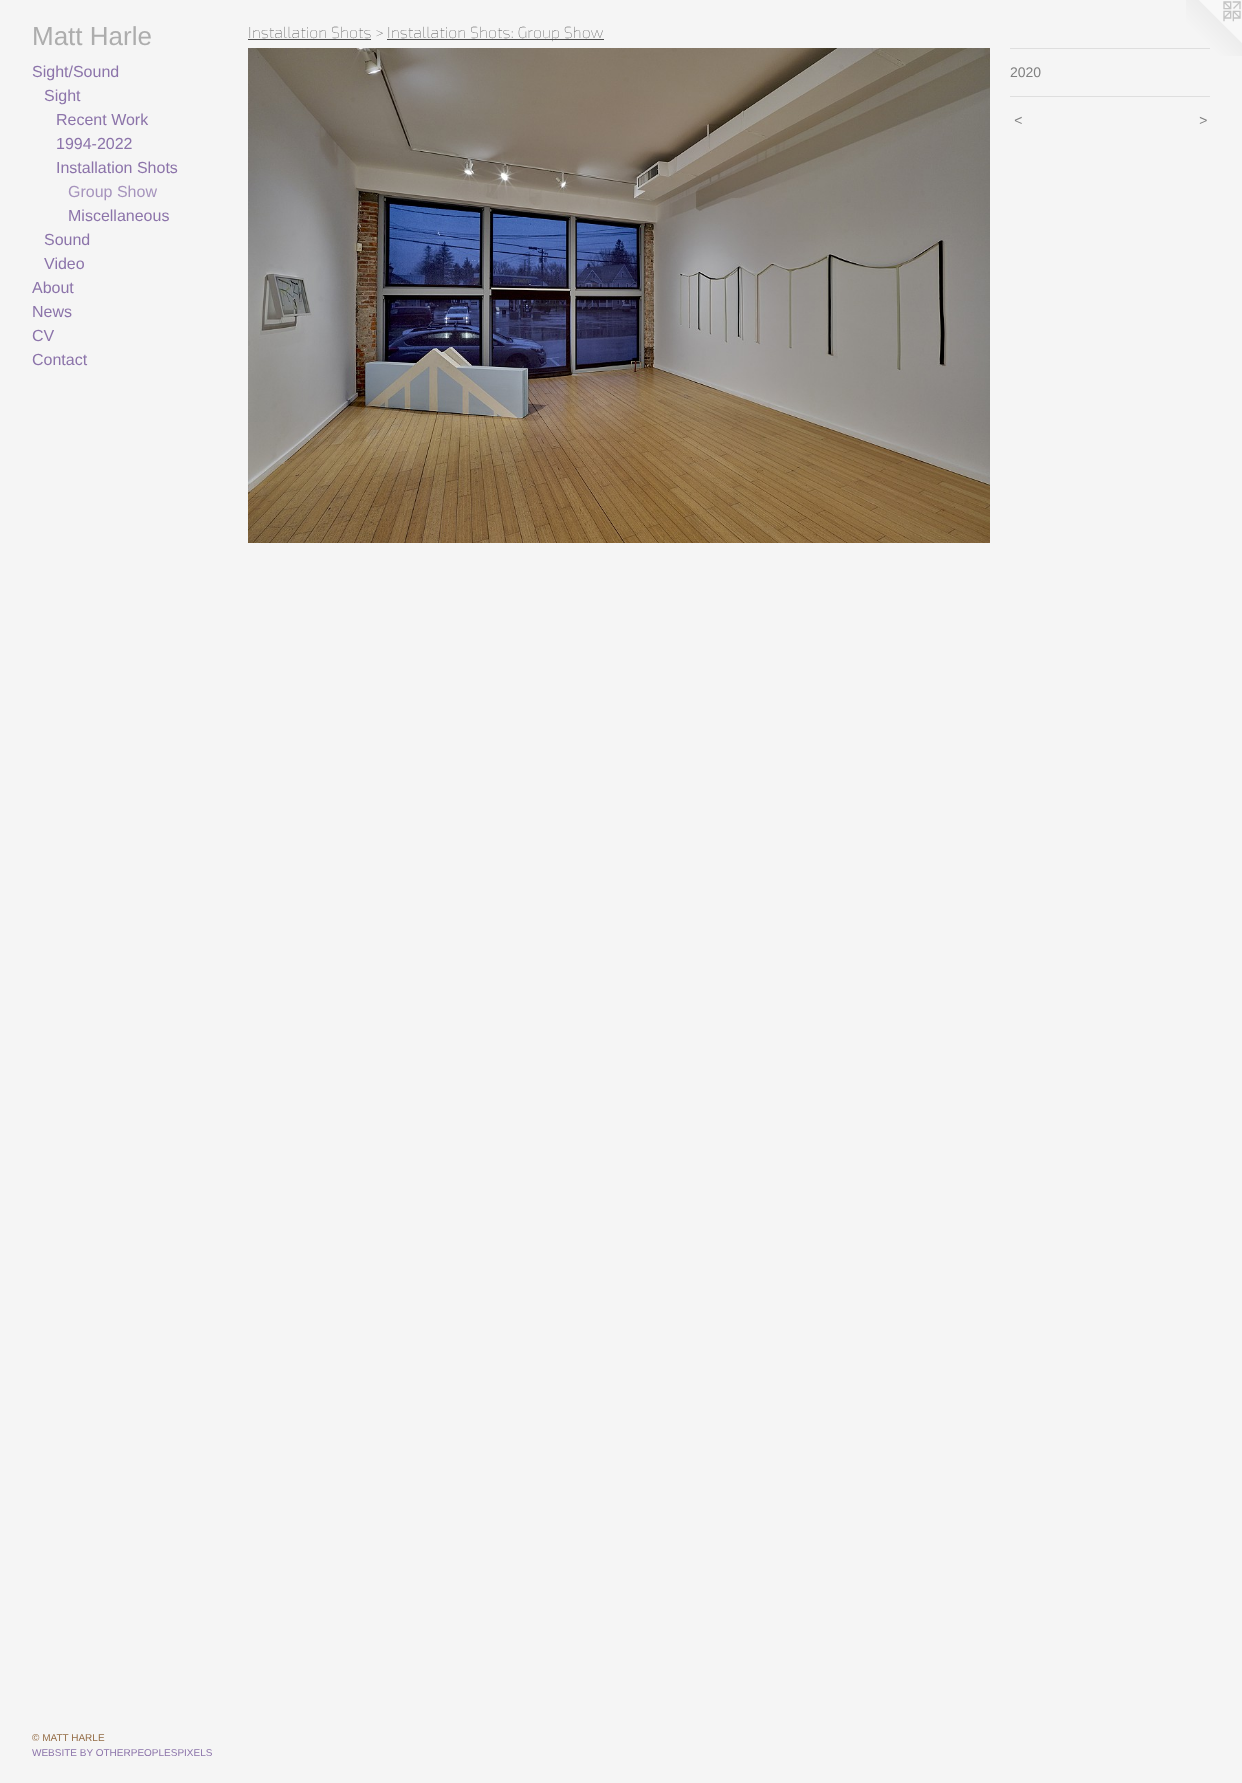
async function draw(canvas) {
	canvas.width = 1242;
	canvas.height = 1783;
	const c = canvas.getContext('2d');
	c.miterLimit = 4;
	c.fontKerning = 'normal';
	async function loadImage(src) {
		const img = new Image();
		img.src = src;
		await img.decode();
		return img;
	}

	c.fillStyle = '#f5f5f5';
	c.fillRect(0, 0, 1242, 1783);
	c.font = '26px Liberation Sans';
	c.fillStyle = '#adadad';
	c.fillText('Matt Harle', 32, 45);
	c.font = '16px Liberation Sans';
	c.fillStyle = '#8c74aa';
	for (const [text, x, y] of [
		['Sight/Sound', 32, 77],
		['Sight', 44, 101],
		['Recent Work', 56, 125],
		['1994-2022', 56, 149],
		['Installation Shots', 56, 173],
	]) {
		c.fillText(text, x, y);
	}
	c.fillStyle = '#a694bd';
	c.fillText('Group Show', 68, 197);
	c.fillStyle = '#8c74aa';
	for (const [text, x, y] of [
		['Miscellaneous', 68, 221],
		['Sound', 44, 245],
		['Video', 44, 269],
		['About', 32, 293],
		['News', 32, 317],
		['CV', 32, 341],
		['Contact', 32, 365],
	]) {
		c.fillText(text, x, y);
	}
	c.font = '10px Liberation Sans';
	c.fillStyle = '#946c45';
	c.fillText('© MATT HARLE', 32, 1741);
	c.fillStyle = '#8c74aa';
	c.fillText('WEBSITE BY OTHERPEOPLESPIXELS', 32, 1756);
	c.font = '100 16px "Exo 2"';
	c.fillStyle = '#4f4f4f';
	c.fillText('Installation Shots >', 248, 38);
	c.fillRect(248, 39, 123, 1);
	c.fillRect(387, 39, 217, 1);
	c.fillText('Installation Shots: Group Show', 387, 38);
	c.drawImage(await loadImage('img1.png'), 248, 48, 742, 495);
	c.drawImage(await loadImage('img2.png'), 1186, 0, 56, 56);
	c.fillStyle = '#dedede';
	c.fillRect(1010, 48, 200, 1);
	c.font = '14px Liberation Sans';
	c.fillStyle = '#808080';
	c.fillText('2020', 1010, 77);
	c.fillStyle = '#dedede';
	c.fillRect(1010, 96, 200, 1);
	c.letterSpacing = '1px';
	c.font = 'italic 14px Liberation Sans';
	c.fillStyle = '#808080';
	c.fillText('<', 1014, 125);
	c.fillText('>', 1199, 125);
}

draw(document.querySelector('canvas'));
